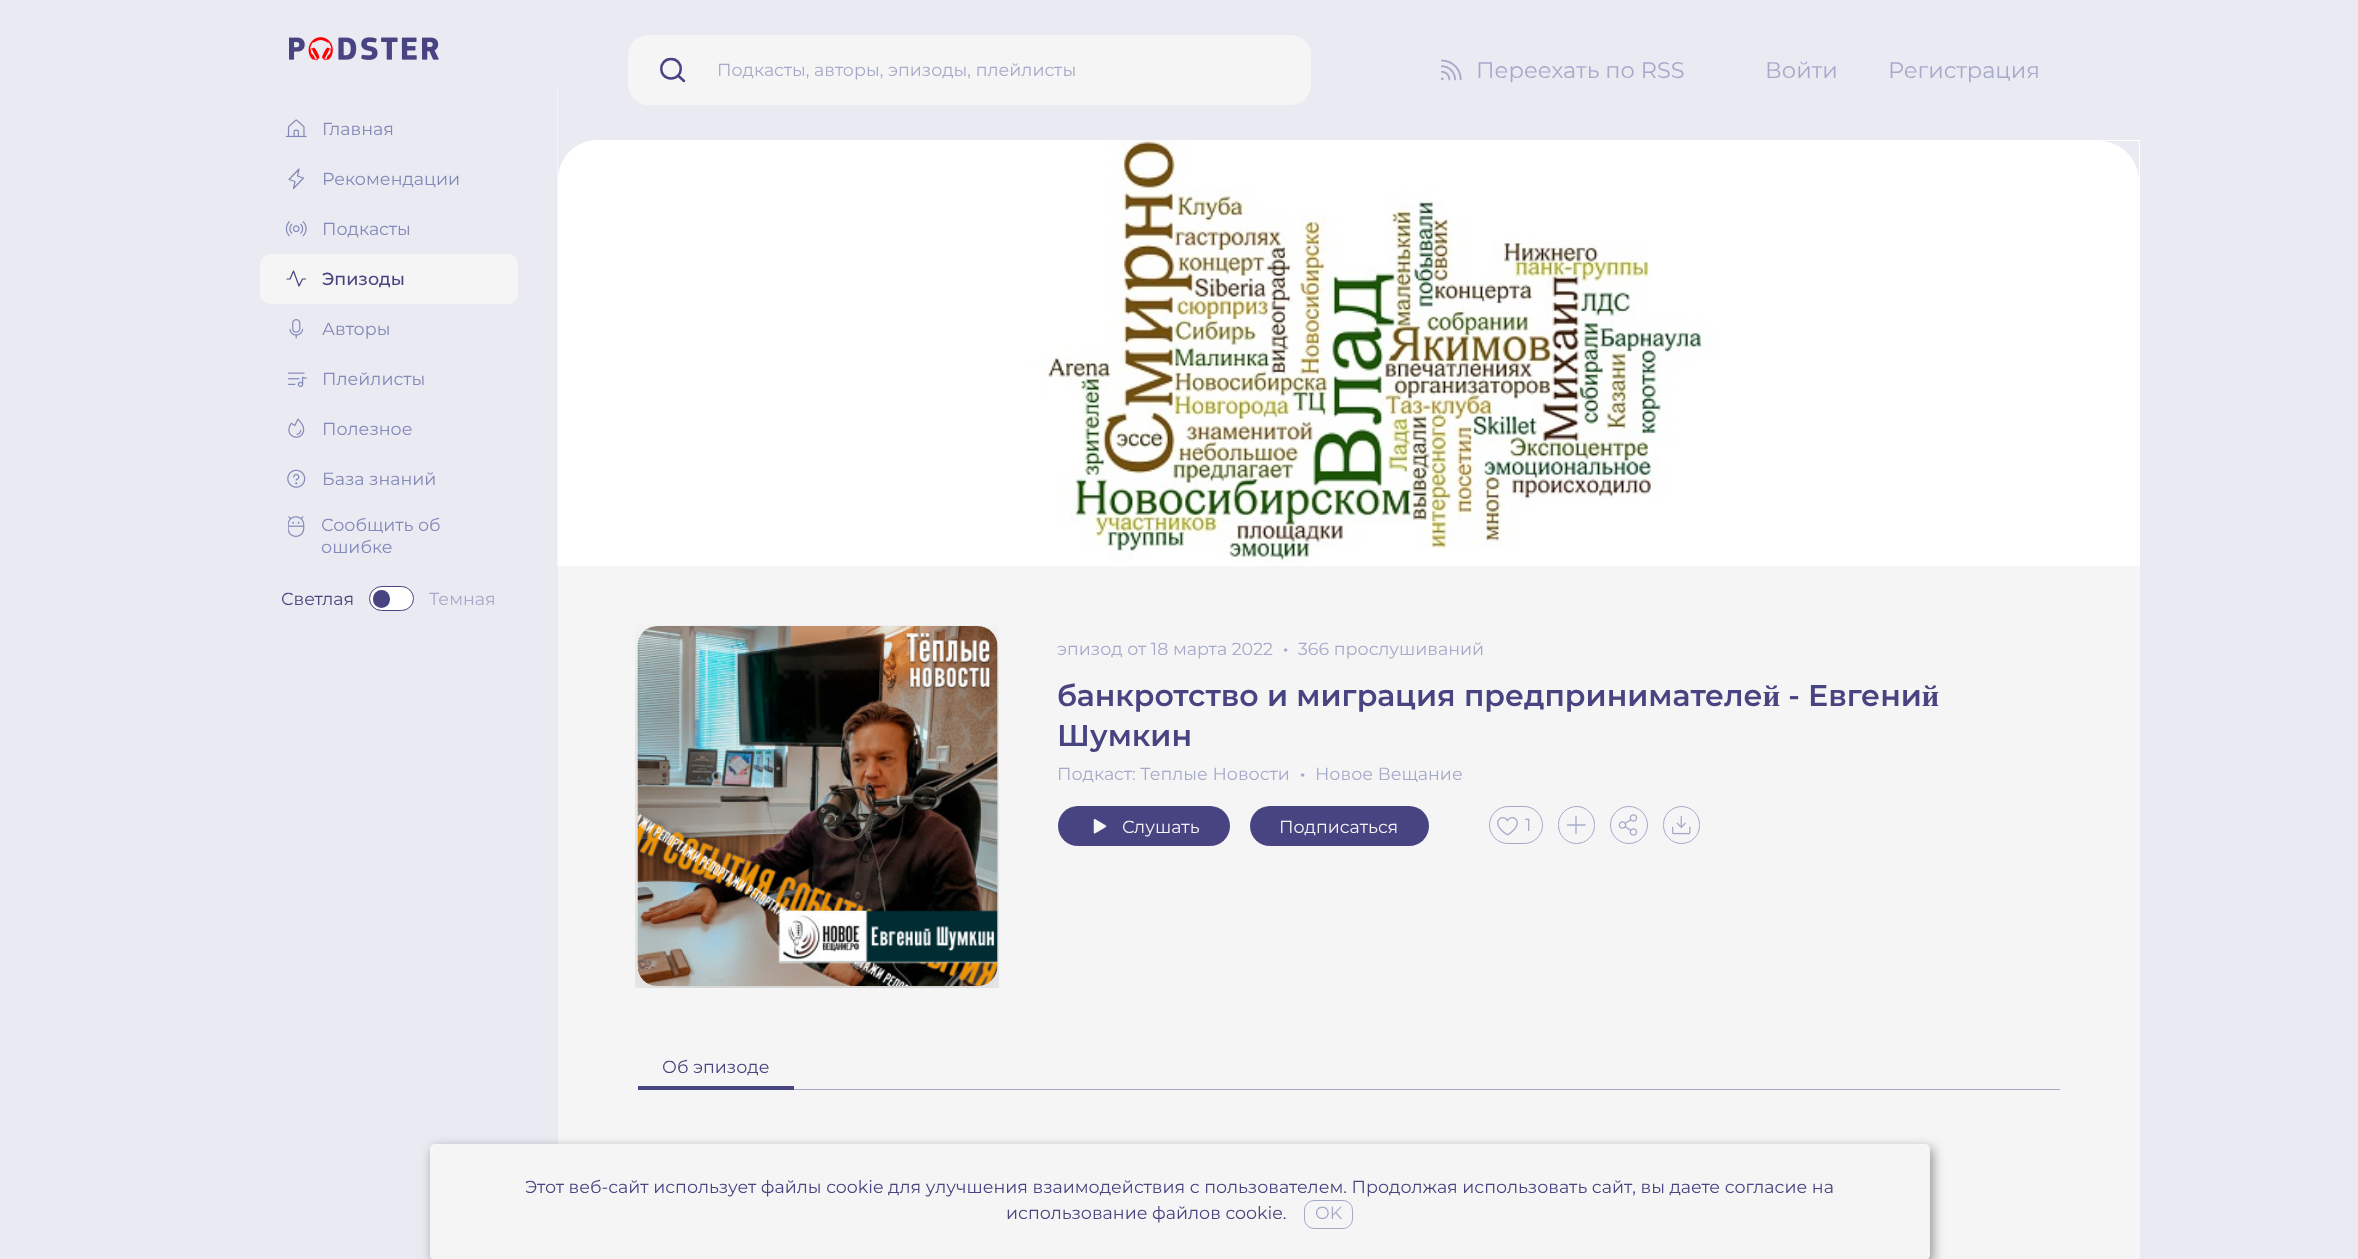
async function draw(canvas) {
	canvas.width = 2358;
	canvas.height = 1259;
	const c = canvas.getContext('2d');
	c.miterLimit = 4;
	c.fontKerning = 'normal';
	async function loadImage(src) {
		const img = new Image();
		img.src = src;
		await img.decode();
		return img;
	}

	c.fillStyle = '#e9eaf2';
	c.fillRect(0, 0, 2358, 1259);
	c.drawImage(await loadImage('img1.png'), 289, 37, 150, 24);
	c.drawImage(await loadImage('img2.png'), 285, 119, 22, 19);
	c.font = '17.5px Montserrat';
	c.fillStyle = '#8389b8';
	c.fillText('Главная', 322, 135);
	c.beginPath();
	c.moveTo(293.5, 188.5);
	c.lineTo(295, 181.5);
	c.lineTo(289, 179.5);
	c.lineTo(299, 169);
	c.lineTo(297.5, 176);
	c.lineTo(303.5, 178);
	c.closePath();
	c.strokeStyle = '#8389b8';
	c.lineWidth = 1.2;
	c.lineCap = 'round';
	c.lineJoin = 'round';
	c.stroke();
	c.fillText('Рекомендации', 322, 185);
	c.drawImage(await loadImage('img3.png'), 285, 221, 22, 16);
	c.fillText('Подкасты', 322, 235);
	c.fillStyle = '#f5f5f5';
	c.beginPath();
	c.roundRect(260, 254, 258, 50, 10);
	c.fill();
	c.beginPath();
	c.moveTo(287, 279);
	c.lineTo(290, 279);
	c.lineTo(293.5, 271);
	c.lineTo(299, 286);
	c.lineTo(302.5, 279);
	c.lineTo(305.5, 279);
	c.strokeStyle = '#474481';
	c.stroke();
	c.font = '500 17.5px Montserrat';
	c.fillStyle = '#474481';
	c.fillText('Эпизоды', 322, 285);
	c.drawImage(await loadImage('img4.png'), 289, 319, 15, 20);
	c.font = '17.5px Montserrat';
	c.fillStyle = '#8389b8';
	c.fillText('Авторы', 322, 335);
	c.drawImage(await loadImage('img5.png'), 288, 372, 19, 15);
	c.fillText('Плейлисты', 322, 385);
	c.drawImage(await loadImage('img6.png'), 288, 418, 17, 20);
	c.fillText('Полезное', 322, 435);
	c.drawImage(await loadImage('img7.png'), 287, 469, 19, 19);
	c.fillText('База знаний', 322, 485);
	c.drawImage(await loadImage('img8.png'), 288, 516, 17, 21);
	c.fillText('Сообщить об', 321, 531);
	c.fillText('ошибке', 321, 553);
	c.fillStyle = '#474481';
	c.fillText('Светлая', 281, 605);
	c.fillStyle = '#fff';
	c.beginPath();
	c.roundRect(369.5, 586.5, 44, 24, 12);
	c.fill();
	c.lineWidth = 1;
	c.lineJoin = 'miter';
	c.stroke();
	c.fillStyle = '#474481';
	c.beginPath();
	c.roundRect(373, 590, 17, 18, 8.5);
	c.fill();
	c.fillStyle = '#a6aaca';
	c.fillText('Темная', 429, 605);
	c.drawImage(await loadImage('img10.png'), 557, 86, 1583, 480);
	c.fillStyle = '#e9eaf2';
	c.beginPath();
	c.moveTo(598, 140);
	c.lineTo(558, 140);
	c.lineTo(558, 180);
	c.bezierCurveTo(558, 158, 575, 140, 598, 140);
	c.closePath();
	c.fill();
	c.fillRect(558, 86, 1582, 54);
	c.fillStyle = '#f5f5f5';
	c.beginPath();
	c.roundRect(628, 35, 683, 70, 20);
	c.fill();
	c.beginPath();
	c.moveTo(671, 78.5);
	c.bezierCurveTo(684, 78.5, 684, 59, 671, 59);
	c.bezierCurveTo(658, 59, 658, 78.5, 671, 78.5);
	c.closePath();
	c.moveTo(678, 75.5);
	c.lineTo(684, 81);
	c.lineWidth = 2.5;
	c.lineJoin = 'round';
	c.stroke();
	c.fillRect(1294, 35, 2, 70);
	c.fillStyle = '#a6aaca';
	c.fillText('Подкасты, авторы, эпизоды, плейлисты', 717, 76);
	c.drawImage(await loadImage('img9.png'), 1441, 59, 21, 22);
	c.font = '22.5px Montserrat';
	for (const [text, x, y] of [
		['Переехать по RSS', 1476, 78],
		['Войти', 1765, 78],
		['Регистрация', 1888, 78],
	]) {
		c.fillText(text, x, y);
	}
	c.fillStyle = '#f5f5f5';
	c.fillRect(558, 566, 1582, 693);
	c.fillStyle = '#e2e8f0';
	c.beginPath();
	c.roundRect(638, 628, 360, 357, 20);
	c.fill();
	c.drawImage(await loadImage('img11.png'), 635, 625, 364, 363);
	c.font = '17.5px Montserrat';
	c.fillStyle = '#a6aaca';
	c.fillText('эпизод от 18 марта 2022', 1057, 655);
	c.font = 'bold 17.5px Montserrat';
	c.fillText('·', 1283, 655);
	c.font = '17.5px Montserrat';
	c.fillText('366 прослушиваний', 1298, 655);
	c.font = '600 30px Montserrat';
	c.fillStyle = '#474481';
	c.fillText('банкротство и миграция предпринимателей - Евгений', 1057, 706);
	c.fillText('Шумкин', 1057, 746);
	c.font = '17.5px Montserrat';
	c.fillStyle = '#a6aaca';
	c.fillText('Подкаст: Теплые Новости', 1057, 780);
	c.font = 'bold 17.5px Montserrat';
	c.fillText('·', 1300, 780);
	c.font = '17.5px Montserrat';
	c.fillText('Новое Вещание', 1315, 780);
	c.fillStyle = '#474481';
	c.beginPath();
	c.roundRect(1058, 806, 172, 40, 20);
	c.fill();
	c.drawImage(await loadImage('img12.png'), 1093, 819, 14, 15);
	c.fillStyle = '#f5f5f5';
	c.fillText('Слушать', 1122, 833);
	c.fillStyle = '#474481';
	c.beginPath();
	c.roundRect(1250, 806, 179, 40, 20);
	c.fill();
	c.fillStyle = '#f5f5f5';
	c.fillText('Подписаться', 1279, 833);
	c.beginPath();
	c.roundRect(1489.5, 806.5, 53, 37, 18.5);
	c.strokeStyle = '#a6aaca';
	c.lineWidth = 1;
	c.lineJoin = 'miter';
	c.stroke();
	c.drawImage(await loadImage('img13.png'), 1497, 817, 21, 19);
	c.fillStyle = '#a6aaca';
	c.fillText('1', 1525, 831);
	c.beginPath();
	c.roundRect(1558.5, 806.5, 36, 37, 18);
	c.stroke();
	c.beginPath();
	c.moveTo(1567.5, 825);
	c.lineTo(1585, 825);
	c.moveTo(1576, 816.5);
	c.lineTo(1576, 833.5);
	c.lineWidth = 1.3;
	c.lineJoin = 'round';
	c.stroke();
	c.beginPath();
	c.arc(1629, 825, 18.5, 0, 2 * Math.PI);
	c.lineWidth = 1;
	c.stroke();
	c.drawImage(await loadImage('img14.png'), 1618, 814, 20, 22);
	c.beginPath();
	c.roundRect(1663.5, 806.5, 36, 37, 18);
	c.lineJoin = 'miter';
	c.stroke();
	c.drawImage(await loadImage('img15.png'), 1672, 815, 19, 20);
	c.fillRect(794, 1089, 1266, 1);
	c.fillStyle = '#474481';
	c.fillRect(638, 1086, 156, 4);
	c.fillText('Об эпизоде', 662, 1073);
	c.fillStyle = '#00000066';
	c.filter = 'blur(6px)';
	c.beginPath();
	c.roundRect(433, 1148, 1500, 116, 5);
	c.fill();
	c.filter = 'none';
	c.fillStyle = '#f5f5f5';
	c.beginPath();
	c.roundRect(430, 1144, 1500, 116, 5);
	c.fill();
	c.fillStyle = '#474481';
	c.fillText('Этот веб-сайт использует файлы cookie для улучшения взаимодействия с пользователем. Продолжая использовать сайт, вы даете согласие на', 525, 1193);
	c.fillText('использование файлов cookie.', 1006, 1219);
	c.beginPath();
	c.roundRect(1304.5, 1200.5, 48, 28, 9.5);
	c.stroke();
	c.fillStyle = '#a6aaca';
	c.fillText('OK', 1315, 1219);
	c.fillStyle = '#e9eaf2';
	c.beginPath();
	c.moveTo(2139, 181);
	c.lineTo(2139, 141);
	c.lineTo(2099, 141);
	c.bezierCurveTo(2121, 141, 2139, 159, 2139, 181);
	c.closePath();
	c.fill();
}

draw(document.querySelector('canvas'));
